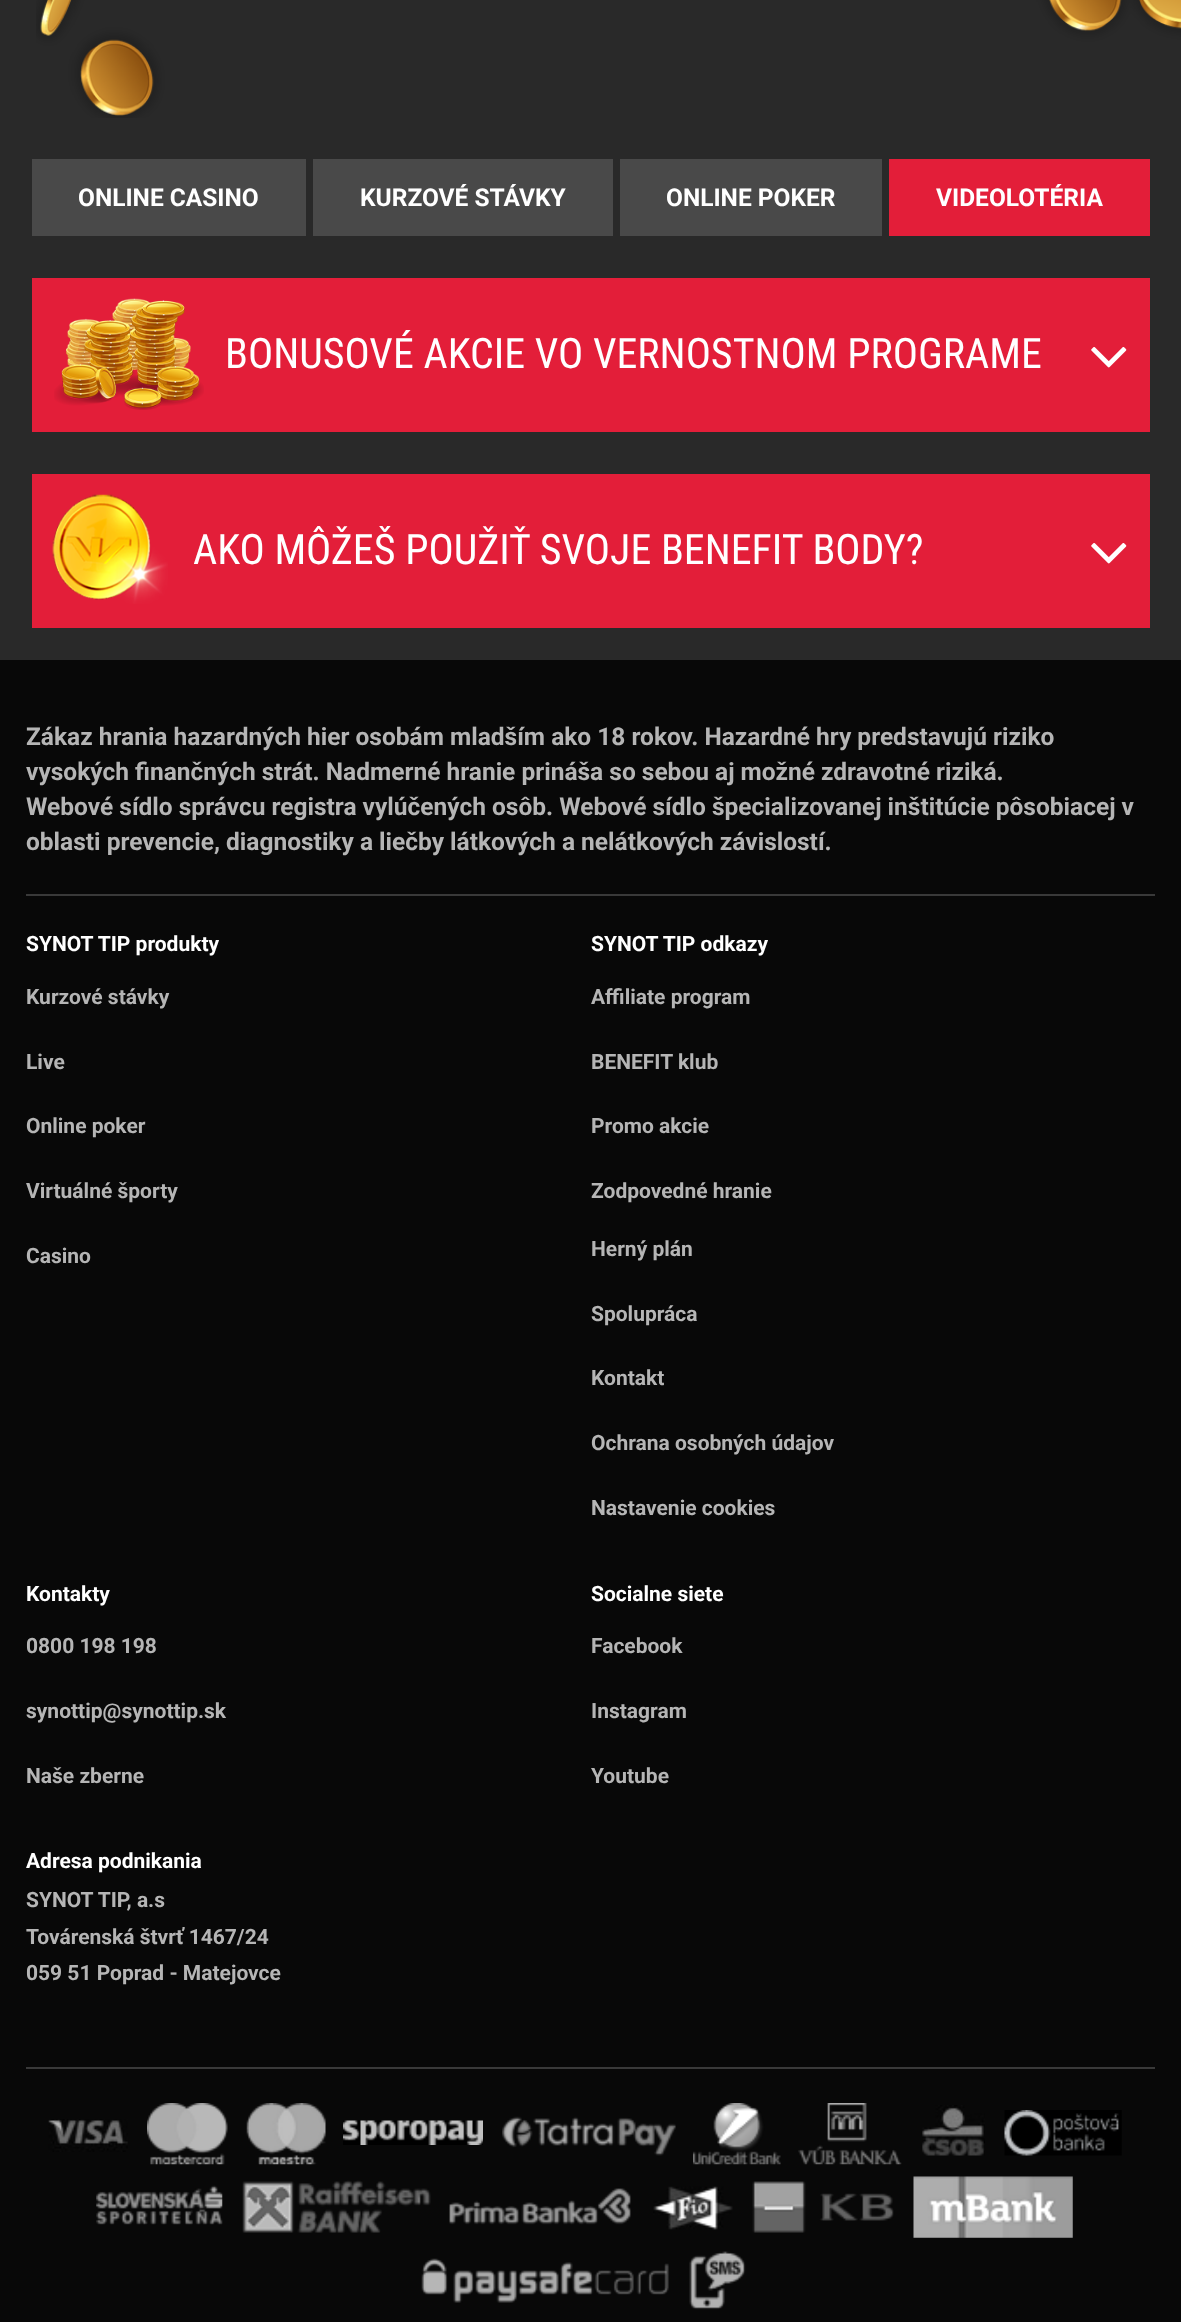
async function draw(canvas) {
	canvas.width = 1181;
	canvas.height = 2322;
	const c = canvas.getContext('2d');
	c.miterLimit = 4;
	c.fontKerning = 'normal';
	async function loadImage(src) {
		const img = new Image();
		img.src = src;
		await img.decode();
		return img;
	}

	c.fillStyle = '#080808';
	c.fillRect(0, 0, 1181, 2322);
	c.fillStyle = '#292929';
	c.fillRect(0, 0, 1181, 660);
	c.drawImage(await loadImage('img1.png'), 36, 0, 1145, 118);
	c.fillStyle = '#494949';
	c.fillRect(32, 159, 274, 77);
	c.font = 'bold 24.5px Roboto';
	c.fillStyle = '#fff';
	c.fillText('ONLINE CASINO', 78, 206);
	c.fillStyle = '#494949';
	c.fillRect(313, 159, 300, 77);
	c.fillStyle = '#fff';
	c.fillText('KURZOVÉ STÁVKY', 360, 206);
	c.fillStyle = '#494949';
	c.fillRect(620, 159, 262, 77);
	c.fillStyle = '#fff';
	c.fillText('ONLINE POKER', 666, 206);
	c.fillStyle = '#e31e39';
	c.fillRect(889, 159, 261, 77);
	c.fillStyle = '#fff';
	c.fillText('VIDEOLOTÉRIA', 936, 206);
	c.fillStyle = '#e31e39';
	c.fillRect(32, 278, 1118, 154);
	c.drawImage(await loadImage('img2.png'), 54, 298, 150, 112);
	c.font = '42px Roboto Condensed';
	c.fillStyle = '#fff';
	c.fillText('BONUSOVÉ AKCIE VO VERNOSTNOM PROGRAME', 225, 368);
	c.drawImage(await loadImage('img3.png'), 1091, 347, 36, 21);
	c.fillStyle = '#e31e39';
	c.fillRect(32, 474, 1118, 154);
	c.drawImage(await loadImage('img4.png'), 52, 494, 116, 110);
	c.fillStyle = '#fff';
	c.fillText('AKO MÔŽEŠ POUŽIŤ SVOJE BENEFIT BODY?', 193, 564);
	c.drawImage(await loadImage('img3.png'), 1091, 543, 36, 21);
	c.font = 'bold 24.5px Roboto';
	c.fillStyle = '#b5b5b5';
	for (const [text, x, y] of [
		['Zákaz hrania hazardných hier osobám mladším ako 18 rokov. Hazardné hry predstavujú riziko', 26, 745],
		['vysokých finančných strát. Nadmerné hranie prináša so sebou aj možné zdravotné riziká.', 26, 780],
		['Webové sídlo správcu registra vylúčených osôb. Webové sídlo špecializovanej inštitúcie pôsobiacej v', 26, 815],
		['oblasti prevencie, diagnostiky a liečby látkových a nelátkových závislostí.', 26, 850],
	]) {
		c.fillText(text, x, y);
	}
	c.fillStyle = '#393939';
	c.fillRect(26, 894, 1129, 2);
	c.font = 'bold 21px Roboto';
	c.fillStyle = '#fff';
	c.fillText('SYNOT TIP produkty', 26, 951);
	c.fillStyle = '#b5b5b5';
	for (const [text, x, y] of [
		['Kurzové stávky', 26, 1004],
		['Live', 26, 1069],
		['Online poker', 26, 1133],
		['Virtuálné športy', 26, 1198],
		['Casino', 26, 1263],
	]) {
		c.fillText(text, x, y);
	}
	c.fillStyle = '#fff';
	c.fillText('SYNOT TIP odkazy', 591, 951);
	c.fillStyle = '#b5b5b5';
	for (const [text, x, y] of [
		['Affiliate program', 591, 1004],
		['BENEFIT klub', 591, 1069],
		['Promo akcie', 591, 1133],
		['Zodpovedné hranie', 591, 1198],
		['Herný plán', 591, 1256],
		['Spolupráca', 591, 1321],
		['Kontakt', 591, 1385],
		['Ochrana osobných údajov', 591, 1450],
		['Nastavenie cookies', 591, 1515],
	]) {
		c.fillText(text, x, y);
	}
	c.fillStyle = '#fff';
	c.fillText('Kontakty', 26, 1601);
	c.fillStyle = '#b5b5b5';
	for (const [text, x, y] of [
		['0800 198 198', 26, 1653],
		['synottip@synottip.sk', 26, 1718],
		['Naše zberne', 26, 1783],
	]) {
		c.fillText(text, x, y);
	}
	c.fillStyle = '#fff';
	c.fillText('Socialne siete', 591, 1601);
	c.fillStyle = '#b5b5b5';
	for (const [text, x, y] of [
		['Facebook', 591, 1653],
		['Instagram', 591, 1718],
		['Youtube', 591, 1783],
	]) {
		c.fillText(text, x, y);
	}
	c.fillStyle = '#fff';
	c.fillText('Adresa podnikania', 26, 1868);
	c.fillStyle = '#b5b5b5';
	for (const [text, x, y] of [
		['SYNOT TIP, a.s', 26, 1907],
		['Továrenská štvrť 1467/24', 26, 1944],
		['059 51 Poprad - Matejovce', 26, 1980],
	]) {
		c.fillText(text, x, y);
	}
	c.fillStyle = '#393939';
	c.fillRect(26, 2067, 1129, 2);
	c.drawImage(await loadImage('img5.png'), 48, 2119, 80, 33);
	c.drawImage(await loadImage('img6.png'), 147, 2103, 81, 62);
	c.drawImage(await loadImage('img7.png'), 246, 2103, 80, 62);
	c.drawImage(await loadImage('img8.png'), 343, 2120, 140, 25);
	c.drawImage(await loadImage('img9.png'), 502, 2116, 174, 40);
	c.drawImage(await loadImage('img10.png'), 693, 2103, 88, 62);
	c.drawImage(await loadImage('img11.png'), 798, 2103, 104, 62);
	c.drawImage(await loadImage('img12.png'), 922, 2105, 63, 51);
	c.drawImage(await loadImage('img13.png'), 1004, 2110, 118, 46);
	c.drawImage(await loadImage('img14.png'), 96, 2185, 127, 40);
	c.drawImage(await loadImage('img15.png'), 242, 2180, 189, 53);
	c.drawImage(await loadImage('img16.png'), 449, 2188, 182, 37);
	c.drawImage(await loadImage('img17.png'), 653, 2186, 80, 44);
	c.drawImage(await loadImage('img18.png'), 752, 2181, 142, 52);
	c.drawImage(await loadImage('img19.png'), 913, 2176, 160, 62);
	c.drawImage(await loadImage('img20.png'), 421, 2258, 248, 45);
	c.drawImage(await loadImage('img21.png'), 689, 2251, 57, 59);
}

draw(document.querySelector('canvas'));
